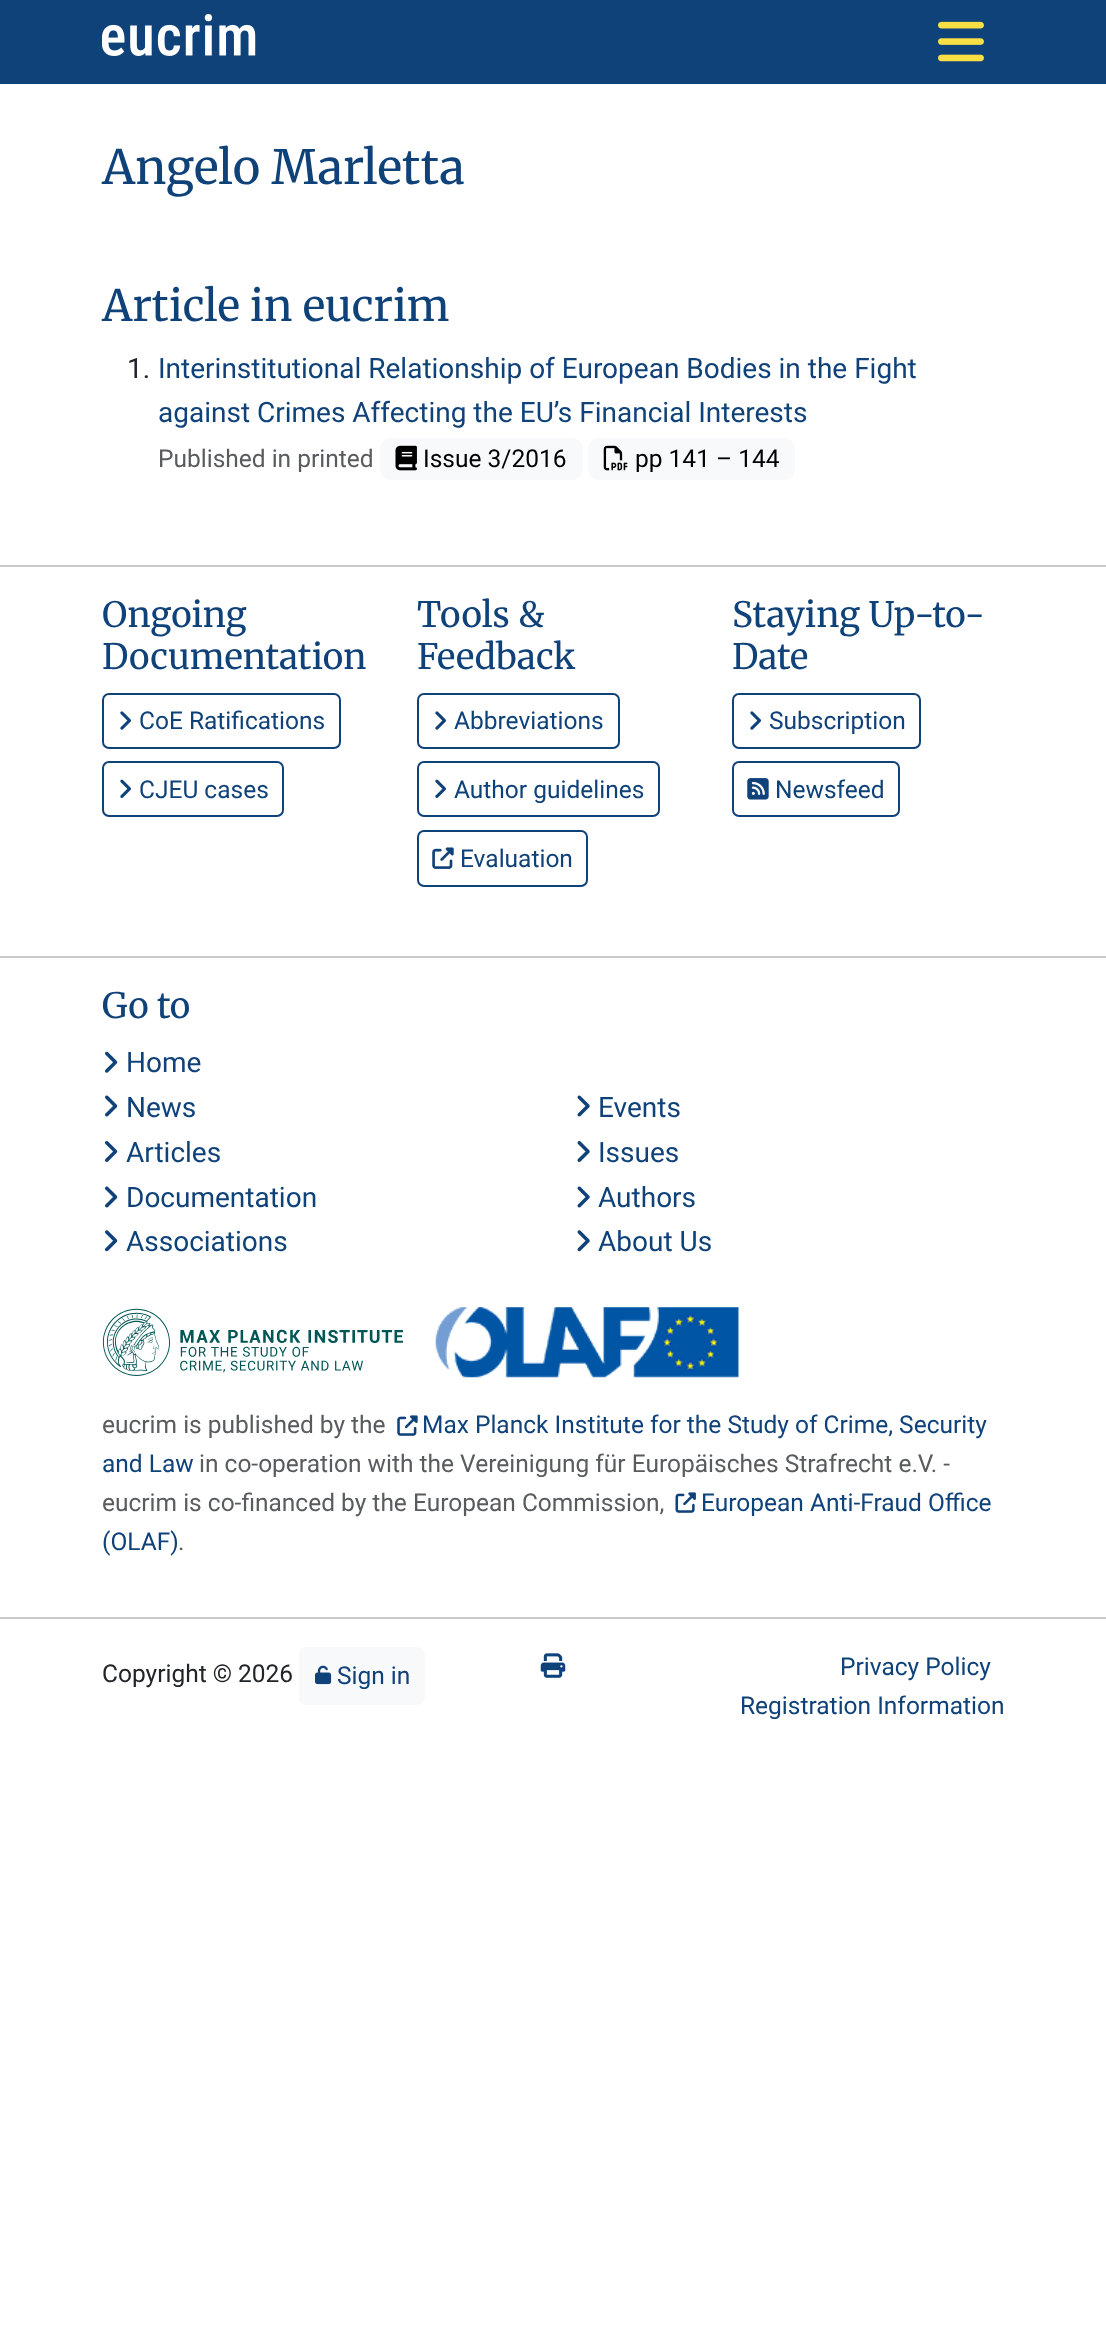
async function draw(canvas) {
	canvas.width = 1106;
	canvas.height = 2349;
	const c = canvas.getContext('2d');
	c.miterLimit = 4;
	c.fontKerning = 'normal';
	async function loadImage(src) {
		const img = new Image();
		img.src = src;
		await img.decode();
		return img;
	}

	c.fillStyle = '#fff';
	c.fillRect(0, 0, 1106, 2349);
	c.fillStyle = '#10427a';
	c.fillRect(0, 0, 1106, 84);
	c.drawImage(await loadImage('img1.png'), 102, 14, 154, 42);
	c.drawImage(await loadImage('img2.png'), 938, 21, 46, 41);
	c.font = '300 47px Merriweather';
	c.fillText('Angelo Marletta', 102, 184);
	c.font = '300 43px Merriweather';
	c.fillText('Article in eucrim', 102, 321);
	c.font = '28px Roboto';
	c.fillStyle = '#212529';
	c.fillText('1.', 127, 378);
	c.fillStyle = '#10427a';
	c.fillText('Interinstitutional Relationship of European Bodies in the Fight', 158, 378);
	c.fillText('against Crimes Affecting the EU’s Financial Interests', 158, 422);
	c.font = '24.5px Roboto';
	c.fillStyle = '#595c5f';
	c.fillText('Published in printed', 158, 467);
	c.fillStyle = '#f8f9fa';
	c.beginPath();
	c.roundRect(380, 438, 203, 42, 11);
	c.fill();
	c.drawImage(await loadImage('img3.png'), 395, 445, 22, 26);
	c.fillStyle = '#000';
	c.fillText('Issue 3/2016', 423, 467);
	c.fillStyle = '#f8f9fa';
	c.beginPath();
	c.roundRect(588, 438, 207, 42, 11);
	c.fill();
	c.drawImage(await loadImage('img4.png'), 603, 445, 25, 26);
	c.fillStyle = '#000';
	c.fillText('pp 141 – 144', 635, 467);
	c.fillStyle = '#c8c9ca';
	c.fillRect(0, 565, 1106, 2);
	c.font = '300 35px Merriweather';
	c.fillStyle = '#10427a';
	c.fillText('Ongoing', 102, 627);
	c.fillText('Documentation', 102, 669);
	c.beginPath();
	c.roundRect(103, 694, 237, 54, 6);
	c.strokeStyle = '#10427a';
	c.lineWidth = 2;
	c.stroke();
	c.drawImage(await loadImage('img5.png'), 120, 711, 11, 19);
	c.font = '24.5px Roboto';
	c.fillText('CoE Ratifications', 139, 729);
	c.beginPath();
	c.roundRect(103, 762, 180, 54, 6);
	c.stroke();
	c.drawImage(await loadImage('img6.png'), 120, 779, 11, 19);
	c.fillText('CJEU cases', 139, 798);
	c.font = '300 35px Merriweather';
	c.fillText('Tools &', 417, 627);
	c.fillText('Feedback', 417, 669);
	c.beginPath();
	c.roundRect(418, 694, 201, 54, 6);
	c.stroke();
	c.drawImage(await loadImage('img5.png'), 435, 711, 11, 19);
	c.font = '24.5px Roboto';
	c.fillText('Abbreviations', 454, 729);
	c.beginPath();
	c.roundRect(418, 762, 241, 54, 6);
	c.stroke();
	c.drawImage(await loadImage('img6.png'), 435, 779, 11, 19);
	c.fillText('Author guidelines', 454, 798);
	c.beginPath();
	c.roundRect(418, 831, 169, 55, 6);
	c.stroke();
	c.drawImage(await loadImage('img7.png'), 432, 847, 22, 22);
	c.fillText('Evaluation', 460, 867);
	c.font = '300 35px Merriweather';
	c.fillText('Staying Up-to-', 732, 627);
	c.fillText('Date', 732, 669);
	c.beginPath();
	c.roundRect(733, 694, 187, 54, 6);
	c.stroke();
	c.drawImage(await loadImage('img5.png'), 750, 711, 11, 19);
	c.font = '24.5px Roboto';
	c.fillText('Subscription', 769, 729);
	c.beginPath();
	c.roundRect(733, 762, 166, 54, 6);
	c.stroke();
	c.drawImage(await loadImage('img8.png'), 747, 778, 22, 22);
	c.fillText('Newsfeed', 775, 798);
	c.fillStyle = '#c8c9ca';
	c.fillRect(0, 956, 1106, 2);
	c.font = '300 35px Merriweather';
	c.fillStyle = '#10427a';
	c.fillText('Go to', 102, 1018);
	c.drawImage(await loadImage('img9.png'), 105, 1051, 13, 22);
	c.font = '28px Roboto';
	c.fillText('Home', 126, 1072);
	c.drawImage(await loadImage('img10.png'), 105, 1095, 13, 22);
	c.fillText('News', 126, 1117);
	c.drawImage(await loadImage('img11.png'), 577, 1095, 13, 22);
	c.fillText('Events', 598, 1117);
	c.drawImage(await loadImage('img12.png'), 105, 1141, 13, 21);
	c.fillText('Articles', 126, 1162);
	c.drawImage(await loadImage('img13.png'), 577, 1141, 13, 21);
	c.fillText('Issues', 598, 1162);
	c.drawImage(await loadImage('img10.png'), 105, 1186, 13, 22);
	c.fillText('Documentation', 126, 1207);
	c.drawImage(await loadImage('img11.png'), 577, 1186, 13, 22);
	c.fillText('Authors', 598, 1207);
	c.drawImage(await loadImage('img14.png'), 105, 1230, 13, 22);
	c.fillText('Associations', 126, 1251);
	c.drawImage(await loadImage('img15.png'), 577, 1230, 13, 22);
	c.fillText('About Us', 598, 1251);
	c.drawImage(await loadImage('img16.png'), 102, 1308, 301, 68);
	c.drawImage(await loadImage('img17.png'), 435, 1307, 304, 71);
	c.font = '24.5px Roboto';
	c.fillStyle = '#595c5f';
	c.fillText('eucrim is published by the', 102, 1433);
	c.drawImage(await loadImage('img18.png'), 397, 1415, 21, 21);
	c.fillStyle = '#10427a';
	c.fillText('Max Planck Institute for the Study of Crime, Security', 422, 1433);
	c.fillText('and Law', 102, 1472);
	c.fillStyle = '#595c5f';
	c.fillText('in co-operation with the Vereinigung für Europäisches Strafrecht e.V. -', 199, 1472);
	c.fillText('eucrim is co-financed by the European Commission,', 102, 1511);
	c.drawImage(await loadImage('img19.png'), 675, 1492, 21, 21);
	c.fillStyle = '#10427a';
	c.fillText('European Anti-Fraud Office', 701, 1511);
	c.fillText('(OLAF)', 102, 1550);
	c.fillStyle = '#595c5f';
	c.fillText('.', 178, 1550);
	c.fillStyle = '#c8c9ca';
	c.fillRect(0, 1617, 1106, 2);
	c.fillStyle = '#212529';
	c.fillText('Copyright © 2026', 102, 1682);
	c.fillStyle = '#f8f9fa';
	c.beginPath();
	c.roundRect(299, 1647, 126, 58, 7);
	c.fill();
	c.drawImage(await loadImage('img20.png'), 315, 1665, 17, 20);
	c.fillStyle = '#10427a';
	c.fillText('Sign in', 337, 1684);
	c.drawImage(await loadImage('img21.png'), 540, 1653, 26, 25);
	c.fillText('Privacy Policy', 840, 1675);
	c.fillText('Registration Information', 740, 1714);
}

draw(document.querySelector('canvas'));
